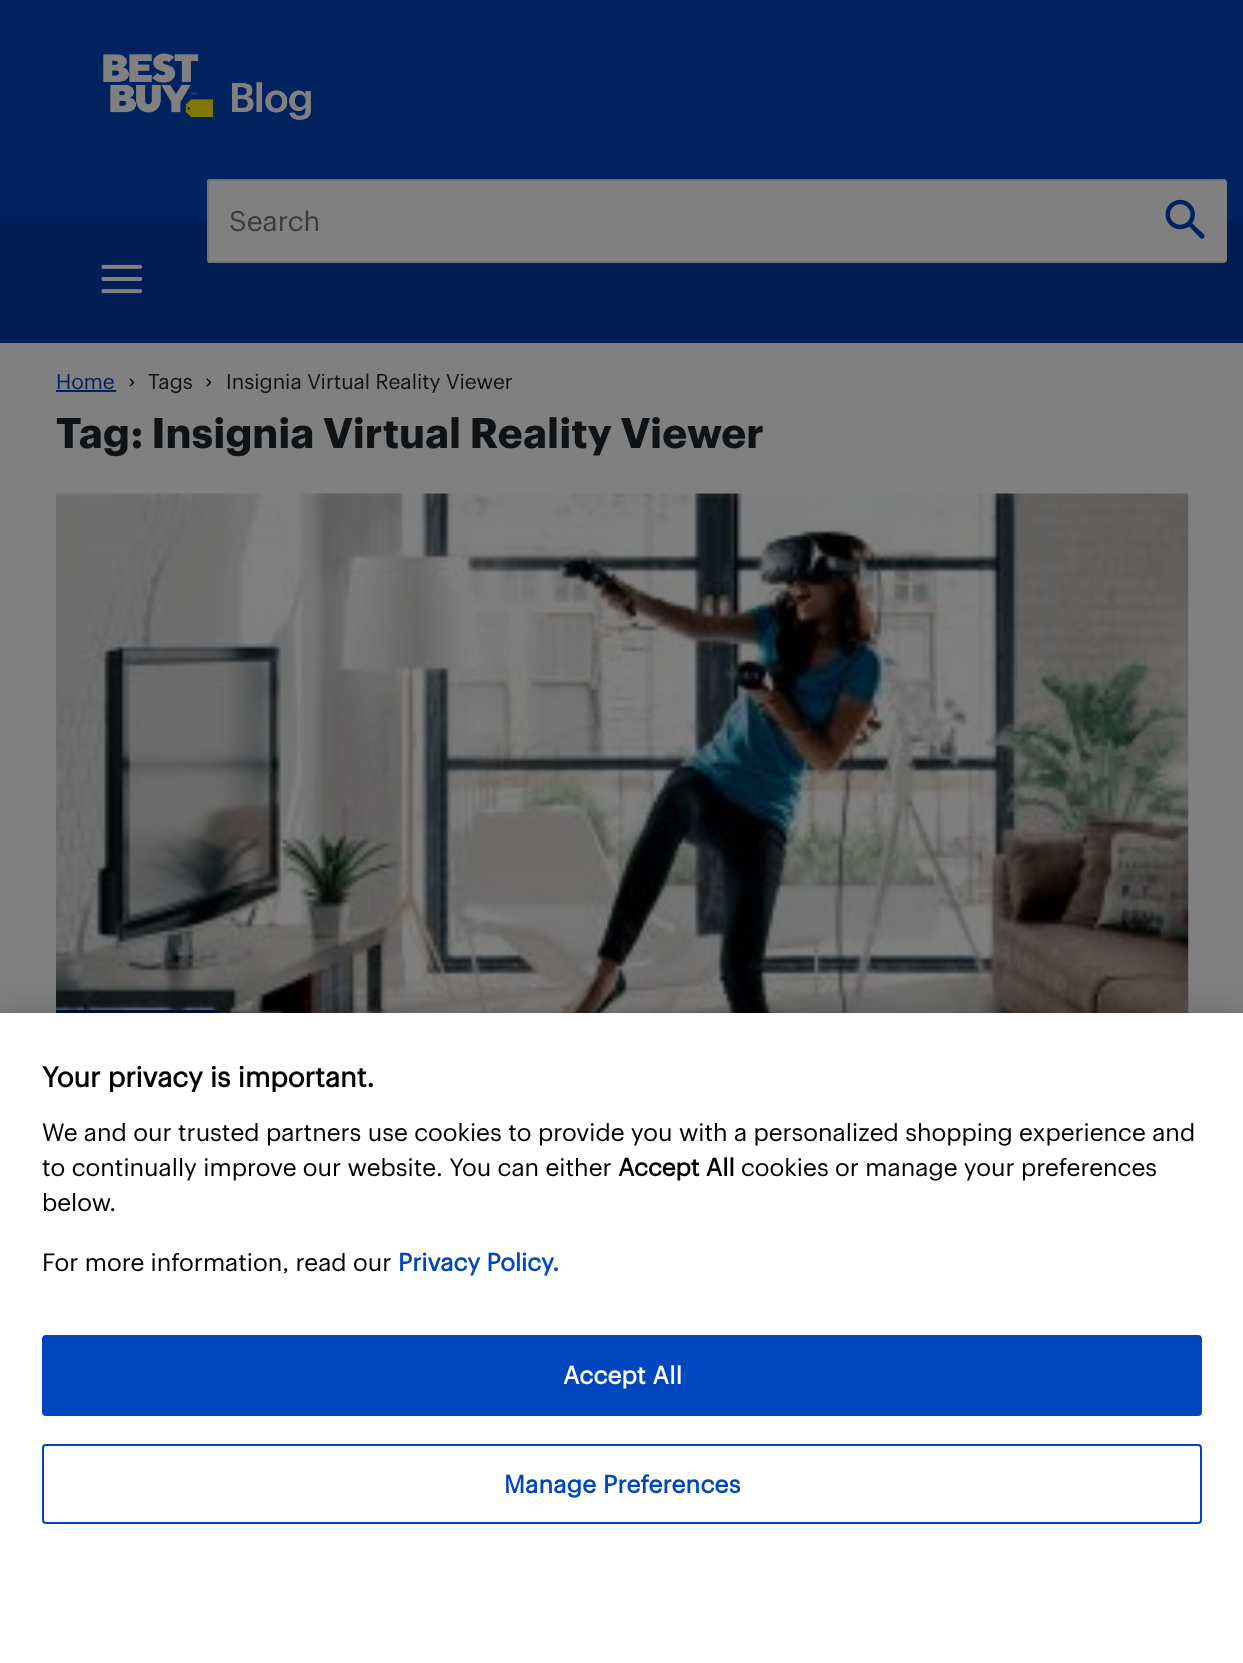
async function draw(canvas) {
	canvas.width = 1243;
	canvas.height = 1663;
	const c = canvas.getContext('2d');
	c.miterLimit = 4;
	c.fontKerning = 'normal';
	async function loadImage(src) {
		const img = new Image();
		img.src = src;
		await img.decode();
		return img;
	}

	c.fillStyle = '#808080';
	c.fillRect(0, 0, 1243, 1663);
	c.fillStyle = '#00235f';
	c.fillRect(0, 0, 1243, 221);
	c.drawImage(await loadImage('img1.png'), 103, 53, 208, 67);
	c.fillStyle = '#011d53';
	c.fillRect(0, 221, 1243, 122);
	c.fillStyle = '#808080';
	c.beginPath();
	c.roundRect(207, 179, 1020, 84, 4);
	c.fill();
	for (const [x, y, w, h, color] of [
		[208, 179, 1017, 2, '#707378'],
		[208, 261, 1017, 2, '#707378'],
		[207, 180, 2, 81, '#707378'],
	]) {
		c.fillStyle = color;
		c.fillRect(x, y, w, h);
	}
	c.font = '28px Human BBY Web';
	c.fillStyle = '#3b3b3b';
	c.fillText('Search', 229, 231);
	c.drawImage(await loadImage('img2.png'), 1165, 199, 40, 40);
	c.drawImage(await loadImage('img3.png'), 101, 264, 41, 30);
	c.font = '21px Human BBY Web';
	c.fillStyle = '#00235f';
	c.fillText('Home', 56, 389);
	c.fillRect(56, 390, 60, 2);
	c.drawImage(await loadImage('img4.png'), 129, 378, 6, 9);
	c.fillStyle = '#0f1316';
	c.fillText('Tags', 148, 389);
	c.drawImage(await loadImage('img4.png'), 206, 378, 6, 9);
	c.fillText('Insignia Virtual Reality Viewer', 226, 389);
	c.font = 'bold 42px Human BBY Web';
	c.fillText('Tag: Insignia Virtual Reality Viewer', 56, 448);
	c.drawImage(await loadImage('img5.png'), 56, 493, 1133, 520);
	c.fillStyle = '#000f3a';
	c.fillRect(56, 1010, 163, 3);
	c.fillStyle = '#00000033';
	c.filter = 'blur(16px)';
	c.beginPath();
	c.rect(0, 1013, 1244, 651);
	c.fill();
	c.filter = 'none';
	c.fillStyle = '#fff';
	c.fillRect(0, 1013, 1243, 650);
	c.font = 'bold 28px "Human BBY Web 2"';
	c.fillStyle = '#000';
	c.fillText('Your privacy is important.', 42, 1087);
	c.font = '24.5px Human BBY Web';
	c.fillText('We and our trusted partners use cookies to provide you with a personalized shopping experience and', 42, 1141);
	c.fillText('to continually improve our website. You can either', 42, 1176);
	c.font = 'bold 24.5px "Human BBY Web 2"';
	c.fillText('Accept All', 618, 1176);
	c.font = '24.5px Human BBY Web';
	for (const [text, x, y] of [
		['cookies or manage your preferences', 741, 1176],
		['below.', 42, 1211],
		['For more information, read our', 42, 1271],
	]) {
		c.fillText(text, x, y);
	}
	c.font = 'bold 24.5px "Human BBY Web 2"';
	c.fillStyle = '#0046be';
	c.fillText('Privacy Policy.', 398, 1271);
	c.beginPath();
	c.roundRect(43, 1336, 1158, 79, 3);
	c.fill();
	c.strokeStyle = '#0046be';
	c.lineWidth = 2;
	c.stroke();
	c.letterSpacing = '0.25px';
	c.fillStyle = '#fff';
	c.fillText('Accept All', 563, 1384);
	c.beginPath();
	c.roundRect(43, 1445, 1158, 78, 3);
	c.stroke();
	c.fillStyle = '#0046be';
	c.fillText('Manage Preferences', 504, 1493);
}

draw(document.querySelector('canvas'));
